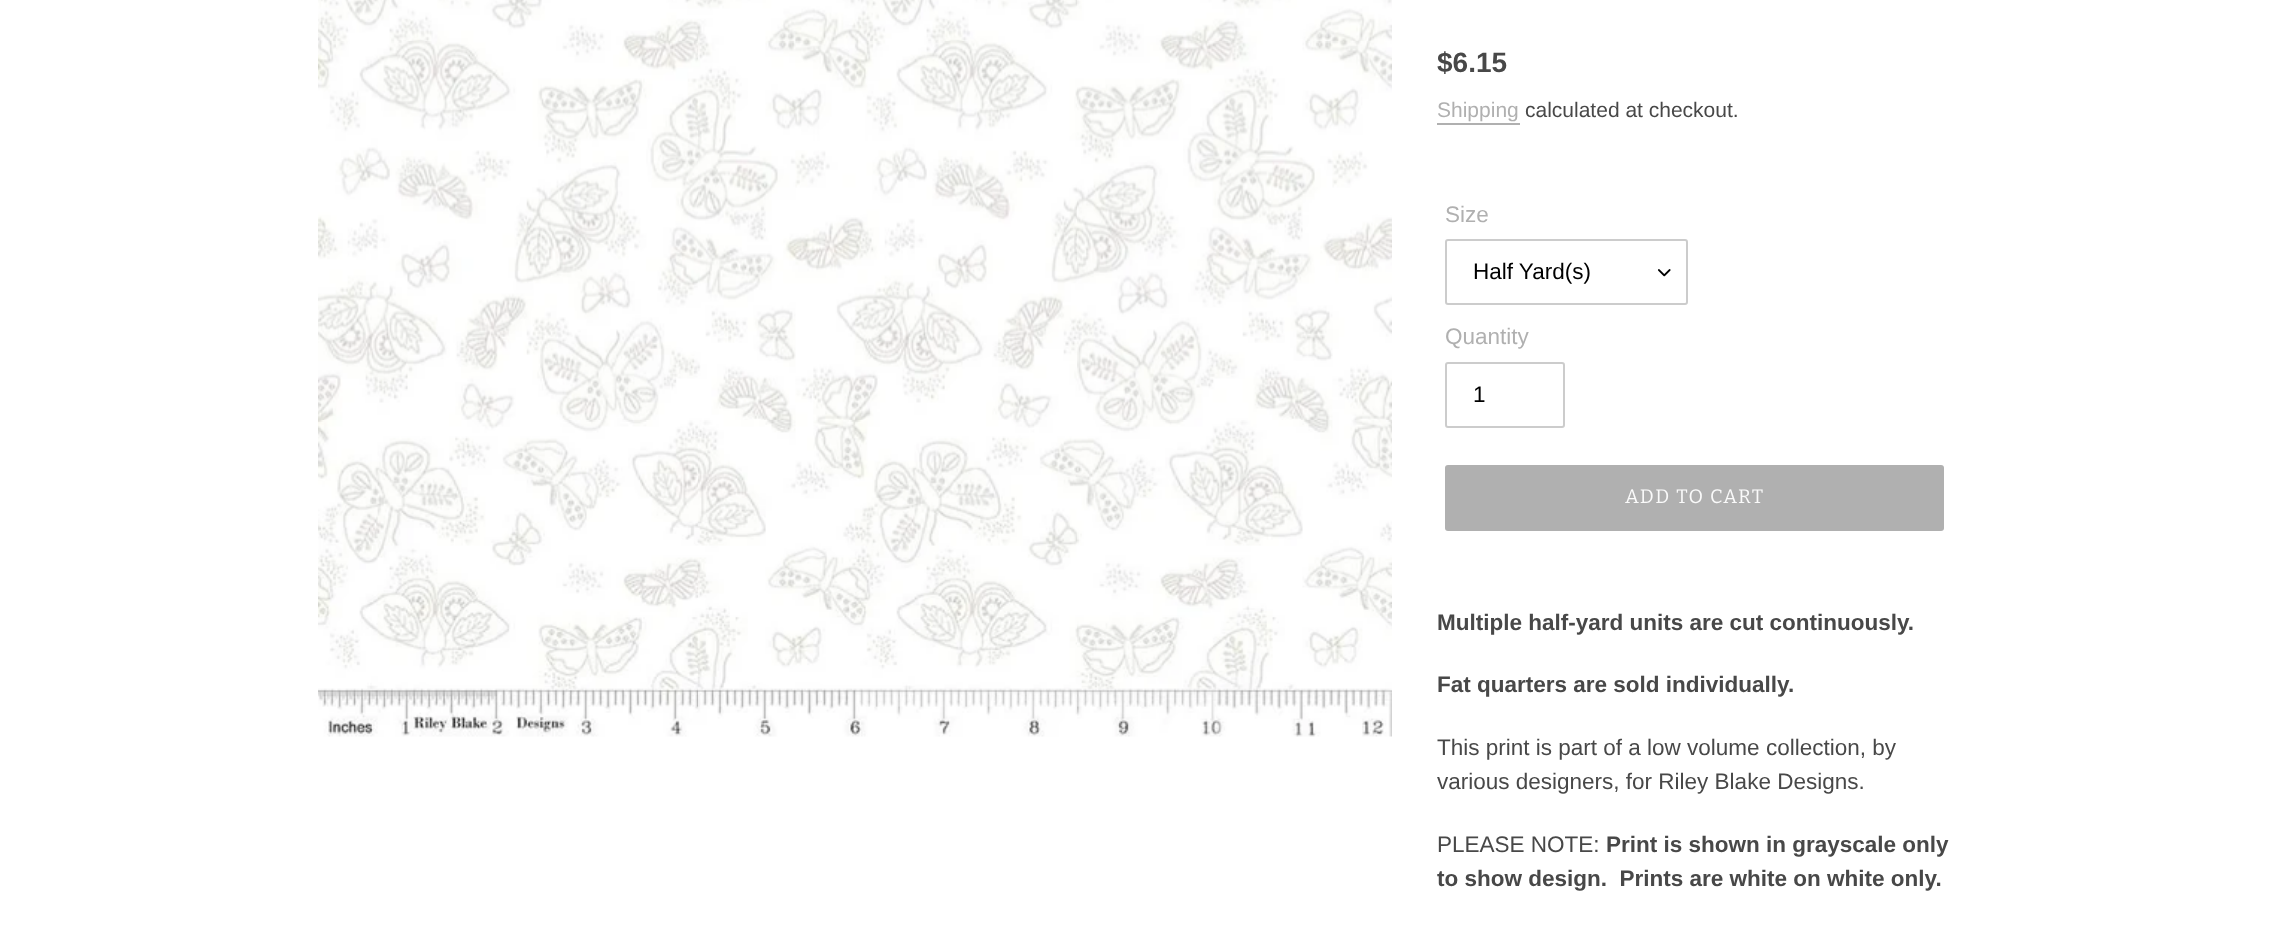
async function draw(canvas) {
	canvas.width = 2269;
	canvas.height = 925;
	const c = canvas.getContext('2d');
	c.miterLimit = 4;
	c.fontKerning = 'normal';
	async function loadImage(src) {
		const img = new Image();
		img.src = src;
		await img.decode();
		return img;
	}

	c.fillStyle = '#fff';
	c.fillRect(0, 0, 2269, 925);
	c.drawImage(await loadImage('img1.png'), 318, 0, 1074, 737);
	c.font = 'bold 28px Liberation Sans';
	c.fillStyle = '#484848';
	c.fillText('$6.15', 1437, 72);
	c.font = '21px Liberation Sans';
	c.fillStyle = '#b0b0b0';
	c.fillText('Shipping', 1437, 117);
	c.fillRect(1437, 123, 83, 2);
	c.fillStyle = '#484848';
	c.fillText('calculated at checkout.', 1525, 117);
	c.font = '22.5px Liberation Sans';
	c.fillStyle = '#b0b0b0';
	c.fillText('Size', 1445, 222);
	c.drawImage(await loadImage('img2.png'), 1658, 269, 13, 8);
	c.beginPath();
	c.roundRect(1446, 240, 241, 64, 2);
	c.strokeStyle = '#ccc';
	c.lineWidth = 2;
	c.stroke();
	c.fillStyle = '#000';
	c.fillText('Half Yard(s)', 1473, 279);
	c.fillStyle = '#b0b0b0';
	c.fillText('Quantity', 1445, 344);
	c.beginPath();
	c.roundRect(1446, 363, 118, 64, 2);
	c.stroke();
	c.fillStyle = '#000';
	c.fillText('1', 1473, 402);
	c.fillStyle = '#b0b0b0';
	c.beginPath();
	c.roundRect(1445, 465, 499, 66, 3);
	c.fill();
	c.letterSpacing = '1.5px';
	c.font = '19.5px Bitter';
	c.fillStyle = '#fafafa';
	c.fillText('ADD TO CART', 1625, 503);
	c.letterSpacing = '0px';
	c.font = 'bold 22.5px Liberation Sans';
	c.fillStyle = '#484848';
	c.fillText('Multiple half-yard units are cut continuously.', 1437, 630);
	c.fillText('Fat quarters are sold individually.', 1437, 692);
	c.font = '22.5px Liberation Sans';
	for (const [text, x, y] of [
		['This print is part of a low volume collection, by', 1437, 755],
		['various designers, for Riley Blake Designs.', 1437, 789],
		['PLEASE NOTE:', 1437, 852],
	]) {
		c.fillText(text, x, y);
	}
	c.font = 'bold 22.5px Liberation Sans';
	c.fillText('Print is shown in grayscale only', 1606, 852);
	c.fillText('to show design.  Prints are white on white only.', 1437, 886);
}

draw(document.querySelector('canvas'));
